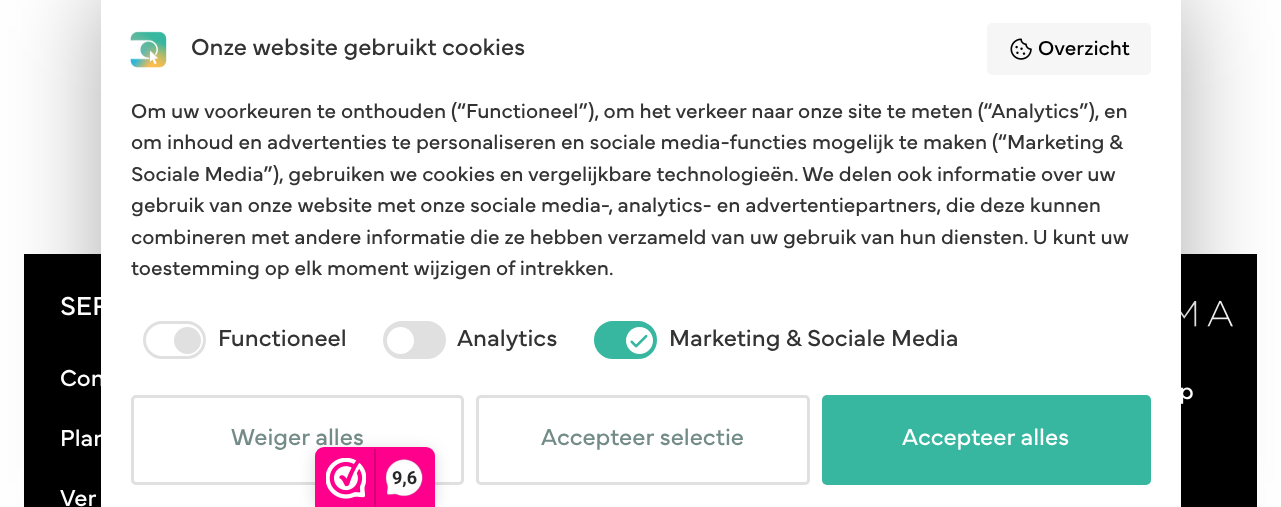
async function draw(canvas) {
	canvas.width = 1281;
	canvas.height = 507;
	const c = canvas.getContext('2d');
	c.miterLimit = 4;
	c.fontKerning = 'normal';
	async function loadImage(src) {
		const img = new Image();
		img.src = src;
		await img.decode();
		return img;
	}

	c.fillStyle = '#fff';
	c.fillRect(0, 0, 1281, 507);
	c.fillStyle = '#000';
	c.fillRect(24, 254, 1233, 253);
	c.drawImage(await loadImage('img4.png'), 1181, 300, 52, 27);
	c.fillStyle = '#00000054';
	c.filter = 'blur(48px)';
	c.beginPath();
	c.roundRect(101, -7, 1080, 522, 8);
	c.fill();
	c.filter = 'none';
	c.fillStyle = '#fff';
	c.fillRect(101, 0, 1080, 507);
	c.drawImage(await loadImage('img1.png'), 130, 31, 37, 37);
	c.font = '24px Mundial';
	c.fillStyle = '#333';
	c.fillText('Onze website gebruikt cookies', 191, 55);
	c.fillStyle = '#f6f6f6';
	c.beginPath();
	c.roundRect(987, 23, 164, 52, 5);
	c.fill();
	c.drawImage(await loadImage('img2.png'), 1010, 38, 22, 22);
	c.font = '21px Mundial';
	c.fillStyle = '#000';
	c.fillText('Overzicht', 1038, 55);
	c.fillStyle = '#333';
	for (const [text, x, y] of [
		['Om uw voorkeuren te onthouden (“Functioneel”), om het verkeer naar onze site te meten (“Analytics”), en', 131, 118],
		['om inhoud en advertenties te personaliseren en sociale media-functies mogelijk te maken (“Marketing &', 131, 149],
		['Sociale Media”), gebruiken we cookies en vergelijkbare technologieën. We delen ook informatie over uw', 131, 181],
		['gebruik van onze website met onze sociale media-, analytics- en advertentiepartners, die deze kunnen', 131, 212],
		['combineren met andere informatie die ze hebben verzameld van uw gebruik van hun diensten. U kunt uw', 131, 244],
		['toestemming op elk moment wijzigen of intrekken.', 131, 275],
	]) {
		c.fillText(text, x, y);
	}
	c.beginPath();
	c.roundRect(144.5, 322.5, 60, 35, 17.5);
	c.strokeStyle = '#e0e0e0';
	c.lineWidth = 3;
	c.stroke();
	c.fillStyle = '#e0e0e0';
	c.beginPath();
	c.arc(187.5, 340.5, 13.5, 0, 2 * Math.PI);
	c.fill();
	c.font = '24px Mundial';
	c.fillStyle = '#333';
	c.fillText('Functioneel', 218, 346);
	c.fillStyle = '#e0e0e0';
	c.beginPath();
	c.roundRect(384.5, 322.5, 60, 35, 17.5);
	c.fill();
	c.stroke();
	c.fillStyle = '#fff';
	c.beginPath();
	c.arc(400.5, 340.5, 13.5, 0, 2 * Math.PI);
	c.fill();
	c.fillStyle = '#333';
	c.fillText('Analytics', 457, 346);
	c.fillStyle = '#37b79f';
	c.beginPath();
	c.roundRect(595.5, 322.5, 60, 35, 17.5);
	c.fill();
	c.strokeStyle = '#37b79f';
	c.stroke();
	c.fillStyle = '#fff';
	c.beginPath();
	c.arc(639.5, 340.5, 13.5, 0, 2 * Math.PI);
	c.fill();
	c.drawImage(await loadImage('img3.png'), 630, 334, 18, 14);
	c.fillStyle = '#333';
	c.fillText('Marketing & Sociale Media', 669, 346);
	c.beginPath();
	c.roundRect(132.5, 396.5, 330, 87, 3.5);
	c.strokeStyle = '#e0e0e0';
	c.stroke();
	c.fillStyle = '#738c88';
	c.fillText('Weiger alles', 231, 445);
	c.beginPath();
	c.roundRect(477.5, 396.5, 331, 87, 3.5);
	c.stroke();
	c.fillText('Accepteer selectie', 541, 445);
	c.fillStyle = '#37b79f';
	c.beginPath();
	c.roundRect(822, 395, 329, 90, 5);
	c.fill();
	c.fillStyle = '#fff';
	c.fillText('Accepteer alles', 902, 445);
	c.font = '27px Mundial';
	c.fillText('SER', 60, 315);
	c.font = '24px Mundial';
	for (const [text, x, y] of [
		['Con', 60, 386],
		['Plan', 60, 446],
		['Ver', 60, 506],
		['p', 1179, 399],
	]) {
		c.fillText(text, x, y);
	}
	c.fillStyle = '#00000026';
	c.filter = 'blur(7.5px)';
	c.beginPath();
	c.roundRect(315, 450, 120, 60, 9);
	c.fill();
	c.filter = 'none';
	c.fillStyle = '#fe008c';
	c.beginPath();
	c.roundRect(315, 447, 120, 60, [9, 9, 0, 0]);
	c.fill();
	c.drawImage(await loadImage('img5.png'), 326, 458, 40, 41);
	c.fillStyle = '#d80077';
	c.fillRect(374, 449, 2, 58);
	c.drawImage(await loadImage('img6.png'), 385, 459, 38, 38);
	c.font = 'bold 18px Roboto';
	c.fillStyle = '#272626';
	c.fillText('9,6', 392, 484);
}

draw(document.querySelector('canvas'));
